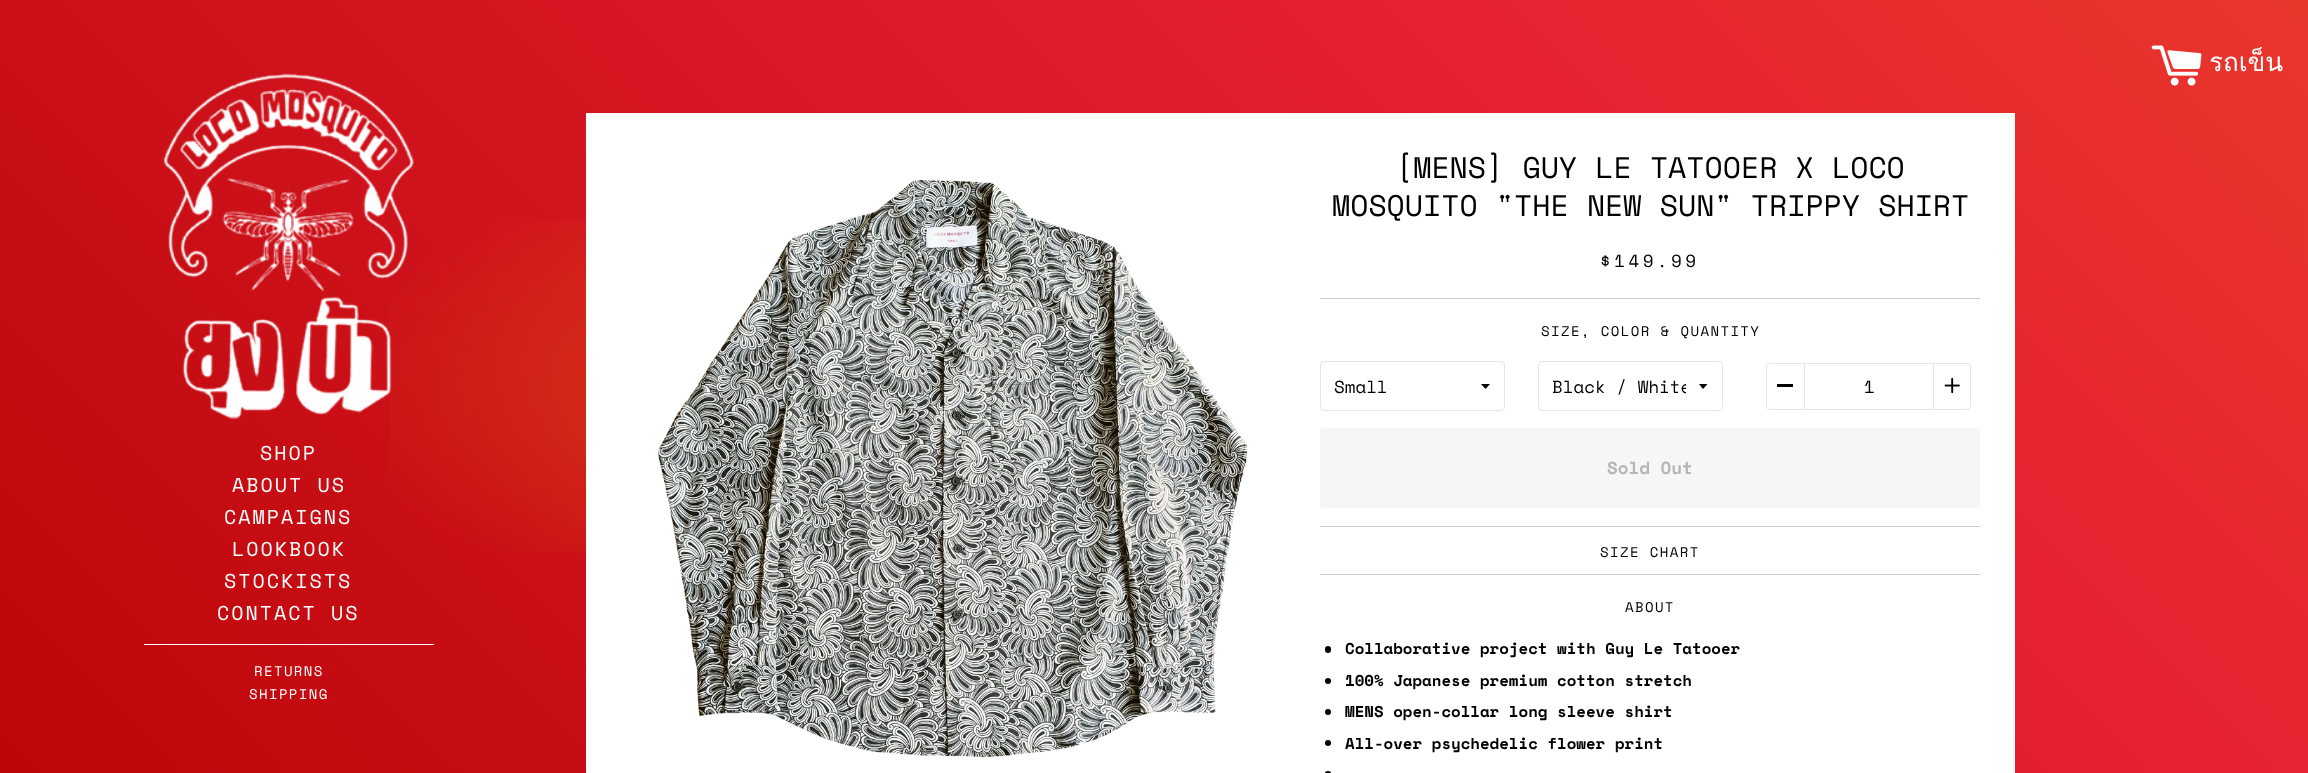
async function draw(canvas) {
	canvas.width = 2308;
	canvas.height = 773;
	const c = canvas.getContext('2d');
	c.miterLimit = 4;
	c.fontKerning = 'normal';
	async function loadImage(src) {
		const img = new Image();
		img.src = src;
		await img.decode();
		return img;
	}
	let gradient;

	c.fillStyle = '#fff';
	c.fillRect(0, 0, 2308, 773);
	gradient = c.createLinearGradient(-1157, 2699, 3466, -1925);
	gradient.addColorStop(0, '#e62132');
	gradient.addColorStop(0.12, '#ed5223');
	gradient.addColorStop(0.28, '#b20000');
	gradient.addColorStop(0.57, '#e62132');
	gradient.addColorStop(0.79, '#ed5223');
	gradient.addColorStop(1, '#e62132');
	c.fillStyle = gradient;
	c.fillRect(0, 0, 2308, 773);
	gradient = c.createRadialGradient(1154, 1155.1, 0, 1154, 1155.1, 4898);
	gradient.addColorStop(0, '#ffbc0033');
	gradient.addColorStop(0.17, '#ffbc0000');
	gradient.addColorStop(0.38, '#ffbc0000');
	gradient.addColorStop(0.48, '#ffbc001a');
	gradient.addColorStop(0.52, '#ffbc0000');
	gradient.addColorStop(0.64, '#ffbc0033');
	gradient.addColorStop(0.72, '#ffbc0000');
	gradient.addColorStop(0.89, '#00000000');
	gradient.addColorStop(1, '#00000000');
	c.fillStyle = gradient;
	c.beginPath();
	c.rect(389, 221, 197, 332);
	c.save();
	c.clip();
	c.scale(1, 1641 / 4898);
	c.fillRect(0, 0, 2308, 2308);
	c.restore();
	c.drawImage(await loadImage('img1.png'), 2151, 45, 51, 41);
	c.font = '26px Loma';
	c.fillStyle = '#fff';
	c.fillText('รถเข็น', 2209, 71);
	gradient = c.createRadialGradient(1154, 1155.1, 0, 1154, 1155.1, 4898);
	gradient.addColorStop(0, '#ffbc0033');
	gradient.addColorStop(0.17, '#ffbc0000');
	gradient.addColorStop(0.38, '#ffbc0000');
	gradient.addColorStop(0.48, '#ffbc001a');
	gradient.addColorStop(0.52, '#ffbc0000');
	gradient.addColorStop(0.64, '#ffbc0033');
	gradient.addColorStop(0.72, '#ffbc0000');
	gradient.addColorStop(0.89, '#00000000');
	gradient.addColorStop(1, '#00000000');
	c.fillStyle = gradient;
	c.beginPath();
	c.rect(389, 221, 197, 332);
	c.save();
	c.clip();
	c.scale(1, 1641 / 4898);
	c.fillRect(0, 0, 2308, 2308);
	c.restore();
	c.drawImage(await loadImage('img2.png'), 163, 73, 251, 346);
	c.letterSpacing = '2px';
	c.font = '20px Space Mono';
	c.fillStyle = '#fff';
	for (const [text, x, y] of [
		['SHOP', 260, 460],
		['ABOUT US', 232, 492],
		['CAMPAIGNS', 224, 524],
		['LOOKBOOK', 232, 556],
		['STOCKISTS', 224, 588],
		['CONTACT US', 217, 620],
	]) {
		c.fillText(text, x, y);
	}
	c.fillRect(144, 644, 290, 1);
	c.letterSpacing = '1.4px';
	c.font = '14px Space Mono';
	c.fillText('RETURNS', 254, 676);
	c.fillText('SHIPPING', 249, 699);
	c.fillRect(586, 113, 1429, 660);
	c.drawImage(await loadImage('img3.png'), 658, 179, 590, 579);
	c.letterSpacing = '0px';
	c.font = '29.75px Space Mono';
	c.fillStyle = '#000';
	c.fillText('[MENS] GUY LE TATOOER X LOCO', 1395, 178);
	c.fillText('MOSQUITO "THE NEW SUN" TRIPPY SHIRT', 1332, 216);
	c.letterSpacing = '3.5px';
	c.font = '17.5px Space Mono';
	c.fillText('$149.99', 1600, 267);
	c.fillStyle = '#ccc';
	c.fillRect(1320, 298, 660, 1);
	c.letterSpacing = '1.4px';
	c.font = '14px Space Mono';
	c.fillStyle = '#000';
	c.fillText('SIZE, COLOR & QUANTITY', 1541, 336);
	c.beginPath();
	c.moveTo(1481, 384);
	c.lineTo(1485.5, 389);
	c.lineTo(1490, 384);
	c.closePath();
	c.fill();
	c.beginPath();
	c.roundRect(1320.5, 361.5, 184, 49, 3.5);
	c.strokeStyle = '#e5e5e5';
	c.stroke();
	c.letterSpacing = '0px';
	c.font = '17.5px Space Mono';
	c.fillText('Small', 1334, 393);
	c.beginPath();
	c.moveTo(1699, 384);
	c.lineTo(1703, 389);
	c.lineTo(1707.5, 384);
	c.closePath();
	c.fill();
	c.beginPath();
	c.roundRect(1538.5, 361.5, 184, 49, 3.5);
	c.stroke();
	c.save();
	c.beginPath();
	c.rect(1551, 373, 135, 27);
	c.clip();
	c.fillText('Black / White', 1552, 393);
	c.restore();
	c.beginPath();
	c.roundRect(1766.5, 363.5, 204, 46, 3.5);
	c.stroke();
	c.fillStyle = '#e5e5e5';
	c.fillRect(1804, 363, 1, 47);
	c.fillStyle = '#000';
	c.fillRect(1777, 384, 16, 3);
	c.fillText('1', 1864, 393);
	c.fillStyle = '#e5e5e5';
	c.fillRect(1933, 363, 1, 47);
	c.drawImage(await loadImage('img4.png'), 1944, 377, 16, 17);
	c.fillStyle = '#f6f6f6';
	c.beginPath();
	c.roundRect(1320, 428, 660, 80, 4);
	c.fill();
	c.font = 'bold 17.5px Space Mono';
	c.fillStyle = '#b6b6b6';
	c.fillText('Sold Out', 1607, 474);
	c.fillStyle = '#ccc';
	c.fillRect(1320, 526, 660, 1);
	c.fillRect(1320, 574, 660, 1);
	c.letterSpacing = '1.4px';
	c.font = '14px Space Mono';
	c.fillStyle = '#000';
	c.fillText('SIZE CHART', 1600, 557);
	c.fillText('ABOUT', 1625, 612);
	c.beginPath();
	c.roundRect(1325, 646, 6, 7, 3);
	c.fill();
	c.letterSpacing = '0px';
	c.font = 'bold 15.75px Space Mono';
	c.fillText('Collaborative project with Guy Le Tatooer', 1345, 654);
	c.beginPath();
	c.arc(1328, 681, 3, 0, 2 * Math.PI);
	c.fill();
	c.fillText('100% Japanese premium cotton stretch', 1345, 686);
	c.beginPath();
	c.arc(1328, 712, 3, 0, 2 * Math.PI);
	c.fill();
	c.fillText('MENS open-collar long sleeve shirt', 1345, 717);
	c.beginPath();
	c.arc(1328, 743, 3, 0, 2 * Math.PI);
	c.fill();
	c.fillText('All-over psychedelic flower print', 1345, 749);
	c.beginPath();
	c.roundRect(1325, 771, 6, 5, 3);
	c.fill();
}

draw(document.querySelector('canvas'));
